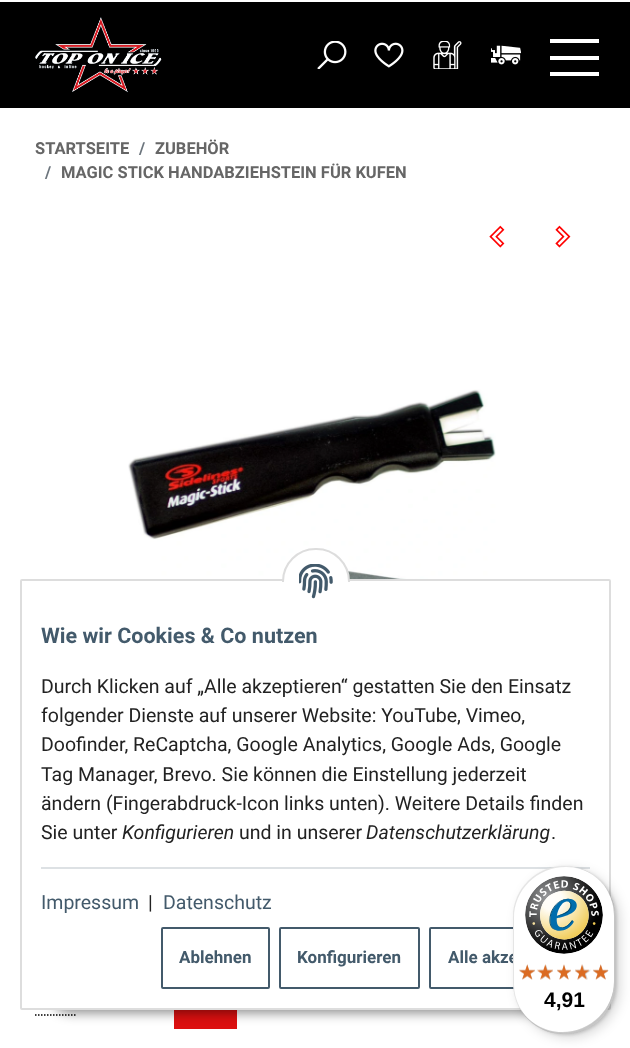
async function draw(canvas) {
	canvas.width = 630;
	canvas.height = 1048;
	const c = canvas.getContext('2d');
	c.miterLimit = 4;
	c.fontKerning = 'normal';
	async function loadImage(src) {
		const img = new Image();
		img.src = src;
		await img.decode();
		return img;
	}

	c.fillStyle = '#fff';
	c.fillRect(0, 0, 630, 1048);
	c.fillStyle = '#000';
	c.fillRect(0, 2, 630, 106);
	c.drawImage(await loadImage('img1.png'), 35, 17, 127, 76);
	c.drawImage(await loadImage('img2.png'), 317, 41, 30, 28);
	c.drawImage(await loadImage('img3.png'), 374, 42, 30, 26);
	c.drawImage(await loadImage('img4.png'), 433, 41, 29, 28);
	c.drawImage(await loadImage('img5.png'), 491, 45, 30, 20);
	c.fillStyle = '#fff';
	c.beginPath();
	c.moveTo(550, 39);
	c.lineTo(550, 43);
	c.lineTo(599, 43);
	c.lineTo(599, 39);
	c.closePath();
	c.moveTo(550, 56);
	c.lineTo(550, 60);
	c.lineTo(599, 60);
	c.lineTo(599, 56);
	c.closePath();
	c.moveTo(550, 72);
	c.lineTo(550, 76);
	c.lineTo(599, 76);
	c.lineTo(599, 72);
	c.closePath();
	c.fill();
	c.font = 'bold 16.5px Roboto';
	c.fillStyle = '#666';
	c.fillText('STARTSEITE', 35, 154);
	c.fillStyle = '#6c757d';
	c.fillText('/', 139, 154);
	c.fillStyle = '#666';
	c.fillText('ZUBEHÖR', 155, 154);
	c.fillStyle = '#6c757d';
	c.fillText('/', 45, 178);
	c.fillStyle = '#666';
	c.fillText('MAGIC STICK HANDABZIEHSTEIN FÜR KUFEN', 61, 178);
	c.drawImage(await loadImage('img6.png'), 489, 225, 16, 23);
	c.drawImage(await loadImage('img7.png'), 555, 225, 16, 23);
	c.drawImage(await loadImage('img8.png'), 128, 389, 368, 190);
	c.beginPath();
	c.moveTo(35, 1015);
	c.lineTo(77, 1015);
	c.strokeStyle = '#000';
	c.lineWidth = 1.5;
	c.setLineDash([1.5, 1.5]);
	c.stroke();
	c.fillStyle = '#dc1010';
	c.fillRect(174, 1010, 63, 19);
	c.fillStyle = '#00000073';
	c.filter = 'blur(6px)';
	c.beginPath();
	c.roundRect(51, 974, 528, 39, 19.5);
	c.fill();
	c.filter = 'none';
	c.fillStyle = '#fff';
	c.beginPath();
	c.roundRect(21, 580, 589, 429, 1);
	c.fill();
	c.strokeStyle = '#ddd';
	c.lineWidth = 2;
	c.setLineDash([]);
	c.stroke();
	c.beginPath();
	c.roundRect(283, 549, 66, 65, 32.5);
	c.fill();
	c.stroke();
	c.fillRect(282, 582, 68, 33);
	c.drawImage(await loadImage('img9.png'), 299, 564, 34, 35);
	c.font = 'bold 21.5px Roboto';
	c.fillStyle = '#435a6b';
	c.fillText('Wie wir Cookies & Co nutzen', 41, 643);
	c.font = '19.5px Roboto';
	c.fillStyle = '#222';
	for (const [text, x, y] of [
		['Durch Klicken auf „Alle akzeptieren“ gestatten Sie den Einsatz', 41, 693],
		['folgender Dienste auf unserer Website: YouTube, Vimeo,', 41, 722],
		['Doofinder, ReCaptcha, Google Analytics, Google Ads, Google', 41, 751],
		['Tag Manager, Brevo. Sie können die Einstellung jederzeit', 41, 781],
		['ändern (Fingerabdruck-Icon links unten). Weitere Details finden', 41, 810],
		['Sie unter', 41, 839],
	]) {
		c.fillText(text, x, y);
	}
	c.font = 'italic 19.5px Roboto';
	c.fillText('Konfigurieren', 122, 839);
	c.font = '19.5px Roboto';
	c.fillText('und in unserer', 239, 839);
	c.font = 'italic 19.5px Roboto';
	c.fillText('Datenschutzerklärung', 366, 839);
	c.font = '19.5px Roboto';
	c.fillText('.', 551, 839);
	c.fillStyle = '#dde1e4';
	c.fillRect(41, 867, 549, 2);
	c.fillStyle = '#435a6b';
	c.fillText('Impressum', 41, 909);
	c.fillStyle = '#222';
	c.fillText('|', 148, 909);
	c.fillStyle = '#435a6b';
	c.fillText('Datenschutz', 163, 909);
	c.beginPath();
	c.roundRect(162, 928, 107, 60, 1);
	c.strokeStyle = '#435a6b';
	c.stroke();
	c.font = 'bold 17px Roboto';
	c.fillText('Ablehnen', 179, 963);
	c.beginPath();
	c.roundRect(280, 928, 139, 60, 1);
	c.stroke();
	c.fillText('Konfigurieren', 297, 963);
	c.beginPath();
	c.roundRect(430, 928, 159, 60, 1);
	c.stroke();
	c.fillText('Alle akze', 448, 963);
	c.fillStyle = '#00000026';
	c.filter = 'blur(6px)';
	c.beginPath();
	c.roundRect(518, 870, 102, 168, 51);
	c.fill();
	c.filter = 'none';
	c.filter = 'blur(1.5px)';
	c.beginPath();
	c.roundRect(515, 867, 102, 168, 51);
	c.fill();
	c.filter = 'none';
	c.fillStyle = '#fff';
	c.beginPath();
	c.roundRect(513, 866, 102, 168, 51);
	c.fill();
	c.fillStyle = '#0000001a';
	c.beginPath();
	c.moveTo(566, 867);
	c.bezierCurveTo(576, 867, 584, 870, 592, 874);
	c.bezierCurveTo(584, 869, 574, 866, 564, 866);
	c.bezierCurveTo(536, 866, 513, 889, 513, 917);
	c.lineTo(513, 983);
	c.bezierCurveTo(513, 1000, 521, 1015, 534, 1024);
	c.bezierCurveTo(522, 1015, 514, 1000, 514, 984);
	c.lineTo(514, 918);
	c.bezierCurveTo(514, 890, 537, 867, 566, 867);
	c.closePath();
	c.fill();
	c.fillStyle = '#00000033';
	c.beginPath();
	c.moveTo(520, 1008);
	c.bezierCurveTo(528, 1024, 545, 1034, 564, 1034);
	c.bezierCurveTo(592, 1034, 615, 1011, 615, 983);
	c.lineTo(615, 917);
	c.bezierCurveTo(615, 908, 613, 899, 608, 892);
	c.bezierCurveTo(612, 899, 614, 907, 614, 915);
	c.lineTo(614, 981);
	c.bezierCurveTo(614, 1009, 591, 1032, 562, 1032);
	c.bezierCurveTo(544, 1032, 528, 1022, 520, 1008);
	c.closePath();
	c.fill();
	c.fillStyle = '#32323233';
	c.beginPath();
	c.moveTo(525, 1016);
	c.bezierCurveTo(535, 1027, 549, 1034, 564, 1034);
	c.bezierCurveTo(592, 1034, 615, 1011, 615, 983);
	c.lineTo(615, 917);
	c.bezierCurveTo(615, 905, 611, 894, 604, 885);
	c.bezierCurveTo(610, 894, 614, 904, 614, 916);
	c.lineTo(614, 982);
	c.bezierCurveTo(614, 1010, 591, 1033, 563, 1033);
	c.bezierCurveTo(548, 1033, 535, 1027, 525, 1016);
	c.closePath();
	c.fill();
	c.fillStyle = '#ffffff4d';
	c.beginPath();
	c.moveTo(525, 1016);
	c.bezierCurveTo(535, 1027, 549, 1034, 564, 1034);
	c.bezierCurveTo(592, 1034, 615, 1011, 615, 983);
	c.lineTo(615, 917);
	c.bezierCurveTo(615, 902, 608, 888, 597, 878);
	c.bezierCurveTo(608, 888, 614, 901, 614, 916);
	c.lineTo(614, 982);
	c.bezierCurveTo(614, 1010, 591, 1033, 563, 1033);
	c.bezierCurveTo(548, 1033, 535, 1027, 525, 1016);
	c.closePath();
	c.fill();
	c.drawImage(await loadImage('img10.png'), 525, 876, 78, 78);
	c.drawImage(await loadImage('img11.png'), 519, 965, 16, 14);
	c.drawImage(await loadImage('img12.png'), 539, 965, 14, 15);
	c.drawImage(await loadImage('img13.png'), 557, 965, 14, 14);
	c.drawImage(await loadImage('img14.png'), 575, 964, 16, 16);
	c.drawImage(await loadImage('img15.png'), 593, 965, 16, 14);
	c.drawImage(await loadImage('img16.png'), 519, 964, 16, 16);
	c.drawImage(await loadImage('img17.png'), 537, 964, 16, 16);
	c.drawImage(await loadImage('img18.png'), 557, 964, 14, 16);
	c.drawImage(await loadImage('img19.png'), 575, 964, 14, 16);
	c.drawImage(await loadImage('img20.png'), 593, 964, 15, 16);
	c.font = 'bold 21px Liberation Sans';
	c.fillStyle = '#000';
	c.fillText('4,91', 544, 1007);
}

draw(document.querySelector('canvas'));
